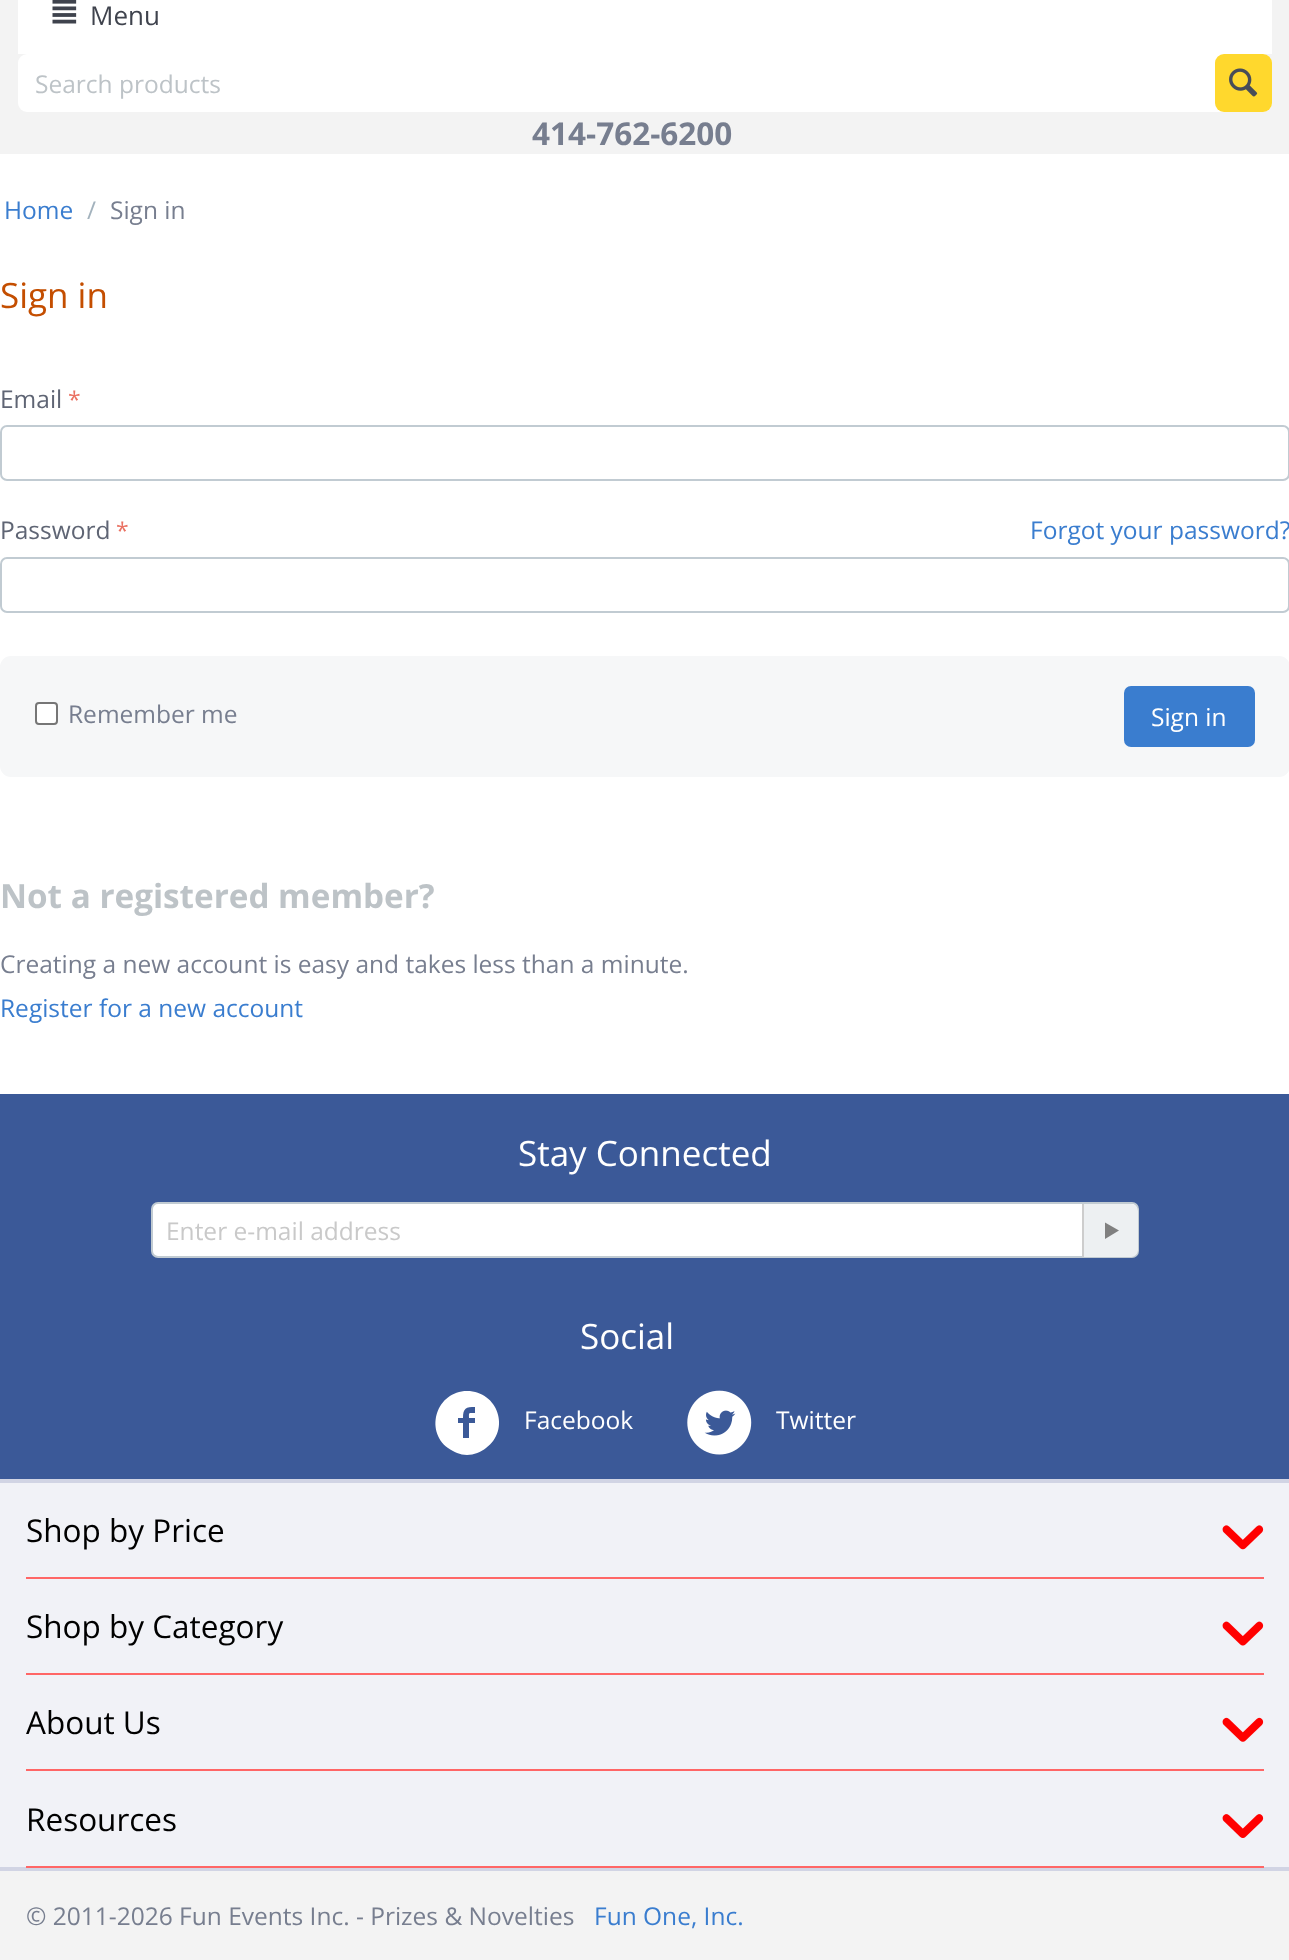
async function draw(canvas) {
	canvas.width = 1289;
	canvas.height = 1960;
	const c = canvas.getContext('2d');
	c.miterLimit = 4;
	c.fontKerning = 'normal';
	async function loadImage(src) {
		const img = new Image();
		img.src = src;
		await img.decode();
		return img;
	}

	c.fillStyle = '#fff';
	c.fillRect(0, 0, 1289, 1960);
	c.fillStyle = '#f3f3f3';
	c.fillRect(0, 0, 1289, 154);
	c.fillStyle = '#fff';
	c.fillRect(18, 0, 1254, 54);
	c.drawImage(await loadImage('img1.png'), 52, 0, 25, 24);
	c.font = '26px Open Sans';
	c.fillStyle = '#3f434d';
	c.fillText('Menu', 90, 25);
	c.fillStyle = '#fff';
	c.beginPath();
	c.roundRect(18, 54, 1254, 58, 9);
	c.fill();
	c.font = '24.5px Open Sans';
	c.fillStyle = '#bdc3c7';
	c.fillText('Search products', 35, 93);
	c.fillStyle = '#ffd82d';
	c.beginPath();
	c.roundRect(1215, 54, 57, 58, 9);
	c.fill();
	c.drawImage(await loadImage('img2.png'), 1229, 68, 29, 29);
	c.font = 'bold 31.5px Open Sans';
	c.fillStyle = '#777e8f';
	c.fillText('414-762-6200', 532, 145);
	c.font = '24.5px Open Sans';
	c.fillStyle = '#3a7dcf';
	c.fillText('Home', 4, 219);
	c.fillStyle = '#a3b2bd';
	c.fillText('/', 87, 219);
	c.fillStyle = '#777e8f';
	c.fillText('Sign in', 110, 219);
	c.font = '35px Open Sans';
	c.fillStyle = '#c44e00';
	c.fillText('Sign in', 0, 308);
	c.font = '24.5px Open Sans';
	c.fillStyle = '#5f6574';
	c.fillText('Email', 0, 408);
	c.font = '23px Open Sans';
	c.fillStyle = '#ea7162';
	c.fillText('*', 68, 408);
	c.beginPath();
	c.roundRect(1, 426, 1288, 54, 6);
	c.strokeStyle = '#c1cbd2';
	c.lineWidth = 2;
	c.stroke();
	c.font = '24.5px Open Sans';
	c.fillStyle = '#5f6574';
	c.fillText('Password', 0, 539);
	c.font = '23px Open Sans';
	c.fillStyle = '#ea7162';
	c.fillText('*', 116, 539);
	c.font = '24.5px Open Sans';
	c.fillStyle = '#3a7dcf';
	c.fillText('Forgot your password?', 1030, 539);
	c.beginPath();
	c.roundRect(1, 558, 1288, 54, 6);
	c.stroke();
	c.fillStyle = '#f6f7f8';
	c.beginPath();
	c.roundRect(0, 656, 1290, 121, 11);
	c.fill();
	c.fillStyle = '#fff';
	c.beginPath();
	c.roundRect(36, 703, 21, 21, 3);
	c.fill();
	c.strokeStyle = '#767676';
	c.stroke();
	c.fillStyle = '#777e8f';
	c.fillText('Remember me', 68, 723);
	c.fillStyle = '#3a7dcf';
	c.beginPath();
	c.roundRect(1124, 686, 131, 61, 7);
	c.fill();
	c.fillStyle = '#fff';
	c.fillText('Sign in', 1151, 726);
	c.font = 'bold 33.25px Open Sans';
	c.fillStyle = '#bdc3c7';
	c.fillText('Not a registered member?', 0, 908);
	c.font = '24.5px Open Sans';
	c.fillStyle = '#777e8f';
	c.fillText('Creating a new account is easy and takes less than a minute.', 0, 973);
	c.fillStyle = '#3a7dcf';
	c.fillText('Register for a new account', 0, 1017);
	for (const [x, y, w, h, color] of [
		[0, 1483, 1289, 384, '#f1f2f7'],
		[0, 1094, 1289, 385, '#3b5998'],
		[0, 1479, 1289, 4, '#d1d4e4'],
	]) {
		c.fillStyle = color;
		c.fillRect(x, y, w, h);
	}
	c.font = '35px Open Sans';
	c.fillStyle = '#fff';
	c.fillText('Stay Connected', 518, 1166);
	c.beginPath();
	c.roundRect(152, 1203, 986, 54, 6);
	c.fill();
	c.strokeStyle = '#c1cbd2';
	c.stroke();
	c.font = '24.5px Open Sans';
	c.fillStyle = '#c9c9c9';
	c.fillText('Enter e-mail address', 166, 1240);
	c.fillStyle = '#edf0f2';
	c.beginPath();
	c.roundRect(1082, 1204, 56, 53, [0, 7, 7, 0]);
	c.fill();
	c.fillStyle = '#cdcdcd';
	c.fillRect(1082, 1204, 2, 53);
	c.fillStyle = '#808080';
	c.beginPath();
	c.moveTo(1105, 1222.5);
	c.lineTo(1119, 1230.5);
	c.lineTo(1105, 1239);
	c.closePath();
	c.fill();
	c.font = '35px Open Sans';
	c.fillStyle = '#fff';
	c.fillText('Social', 580, 1349);
	c.beginPath();
	c.moveTo(467, 1391);
	c.bezierCurveTo(437, 1391, 424, 1430, 448, 1448);
	c.bezierCurveTo(454, 1452, 460, 1455, 467, 1455);
	c.bezierCurveTo(474, 1455, 481, 1452, 486, 1448);
	c.bezierCurveTo(511, 1430, 498, 1391, 467, 1391);
	c.closePath();
	c.moveTo(475, 1413);
	c.bezierCurveTo(468, 1413, 469, 1412, 469, 1418);
	c.lineTo(475, 1418);
	c.lineTo(475, 1423);
	c.lineTo(469, 1423);
	c.lineTo(469, 1438);
	c.lineTo(463, 1438);
	c.lineTo(463, 1423);
	c.lineTo(458, 1423);
	c.lineTo(458, 1418);
	c.lineTo(463, 1418);
	c.bezierCurveTo(463, 1408, 466, 1407, 475, 1407);
	c.closePath();
	c.fill();
	c.font = '24.5px Open Sans';
	c.fillText('Facebook', 524, 1429);
	c.drawImage(await loadImage('img3.png'), 687, 1390, 65, 65);
	c.fillText('Twitter', 776, 1429);
	c.fillStyle = '#f66';
	c.fillRect(26, 1577, 1238, 2);
	c.font = '31.5px Open Sans';
	c.fillStyle = '#000';
	c.fillText('Shop by Price', 26, 1542);
	c.drawImage(await loadImage('img4.png'), 1222, 1525, 42, 25);
	c.fillStyle = '#f66';
	c.fillRect(26, 1673, 1238, 2);
	c.fillStyle = '#000';
	c.fillText('Shop by Category', 26, 1638);
	c.drawImage(await loadImage('img5.png'), 1222, 1621, 42, 25);
	c.fillStyle = '#f66';
	c.fillRect(26, 1769, 1238, 2);
	c.fillStyle = '#000';
	c.fillText('About Us', 26, 1734);
	c.drawImage(await loadImage('img6.png'), 1222, 1717, 42, 25);
	c.fillStyle = '#d1d4e4';
	c.fillRect(0, 1867, 1289, 4);
	c.fillStyle = '#f66';
	c.fillRect(26, 1866, 1238, 2);
	c.fillStyle = '#000';
	c.fillText('Resources', 26, 1831);
	c.drawImage(await loadImage('img7.png'), 1222, 1814, 42, 24);
	c.fillStyle = '#f3f3f3';
	c.fillRect(0, 1871, 1289, 89);
	c.font = '24.5px Open Sans';
	c.fillStyle = '#777e8f';
	c.fillText('© 2011-2026 Fun Events Inc. - Prizes & Novelties', 26, 1925);
	c.fillStyle = '#3a7dcf';
	c.fillText('Fun One, Inc.', 594, 1925);
}

draw(document.querySelector('canvas'));
